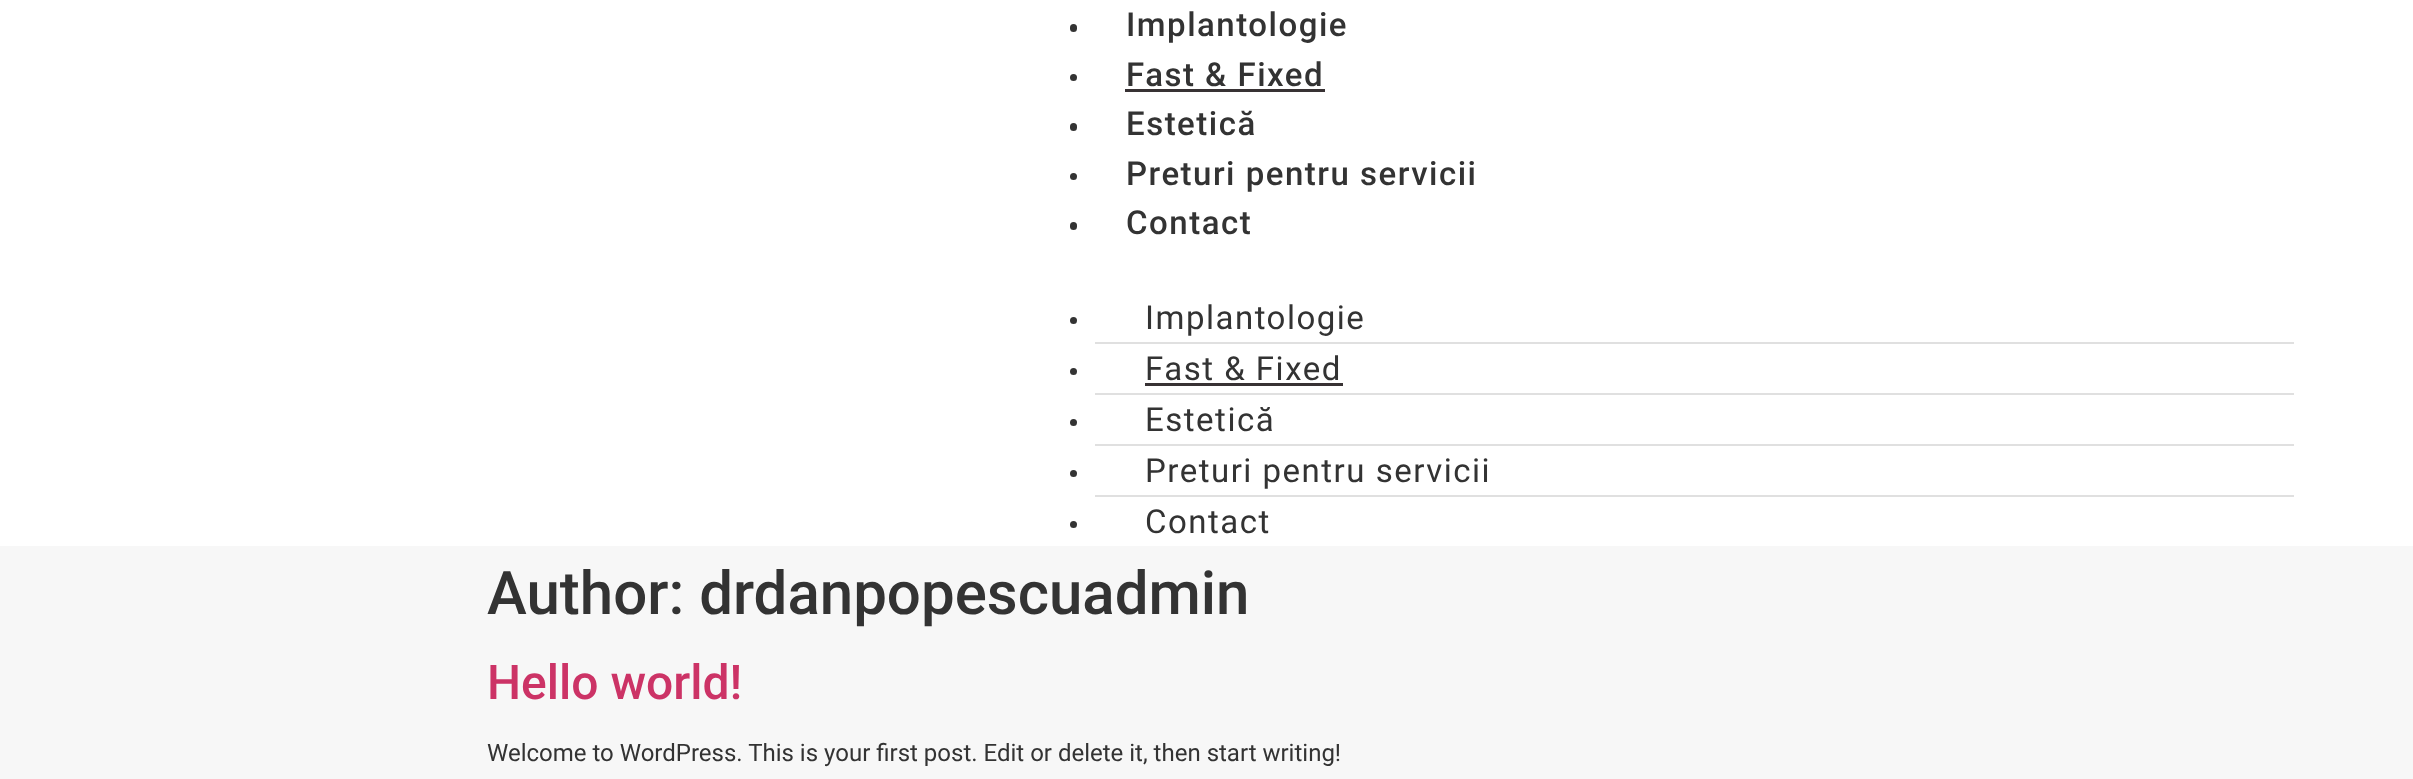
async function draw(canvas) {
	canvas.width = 2413;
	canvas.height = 779;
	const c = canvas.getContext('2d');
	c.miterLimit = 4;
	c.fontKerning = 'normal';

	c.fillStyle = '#f7f7f7';
	c.fillRect(0, 0, 2413, 779);
	c.fillStyle = '#fff';
	c.fillRect(0, 0, 2413, 546);
	c.fillStyle = '#333';
	c.beginPath();
	c.roundRect(1070, 24, 7, 8, 3.5);
	c.fill();
	c.letterSpacing = '1.5px';
	c.font = '500 33px Roboto';
	c.fillText('Implantologie', 1126, 36);
	c.beginPath();
	c.arc(1073.5, 77.5, 3.5, 0, 2 * Math.PI);
	c.fill();
	c.fillText('Fast & Fixed', 1126, 86);
	c.fillStyle = '#383234';
	c.fillRect(1125, 89, 200, 3);
	c.fillStyle = '#333';
	c.beginPath();
	c.roundRect(1070, 123, 7, 8, 3.5);
	c.fill();
	c.fillText('Estetică', 1126, 135);
	c.beginPath();
	c.arc(1073.5, 176.5, 3.5, 0, 2 * Math.PI);
	c.fill();
	c.fillText('Preturi pentru servicii', 1126, 185);
	c.beginPath();
	c.roundRect(1070, 222, 7, 8, 3.5);
	c.fill();
	c.fillText('Contact', 1126, 234);
	c.fillStyle = '#e0e0e0';
	c.fillRect(1095, 342, 1199, 2);
	c.fillStyle = '#333';
	c.beginPath();
	c.arc(1073.5, 320.5, 3.5, 0, 2 * Math.PI);
	c.fill();
	c.font = '33px Roboto';
	c.fillText('Implantologie', 1145, 329);
	c.fillStyle = '#e0e0e0';
	c.fillRect(1095, 393, 1199, 2);
	c.fillStyle = '#333';
	c.beginPath();
	c.arc(1073.5, 371.5, 3.5, 0, 2 * Math.PI);
	c.fill();
	c.fillText('Fast & Fixed', 1145, 380);
	c.fillStyle = '#383234';
	c.fillRect(1145, 383, 198, 3);
	c.fillStyle = '#e0e0e0';
	c.fillRect(1095, 444, 1199, 2);
	c.fillStyle = '#333';
	c.beginPath();
	c.arc(1073.5, 422.5, 3.5, 0, 2 * Math.PI);
	c.fill();
	c.fillText('Estetică', 1145, 431);
	c.fillStyle = '#e0e0e0';
	c.fillRect(1095, 495, 1199, 2);
	c.fillStyle = '#333';
	c.beginPath();
	c.arc(1073.5, 473.5, 3.5, 0, 2 * Math.PI);
	c.fill();
	c.fillText('Preturi pentru servicii', 1145, 482);
	c.beginPath();
	c.arc(1073.5, 524.5, 3.5, 0, 2 * Math.PI);
	c.fill();
	c.fillText('Contact', 1145, 533);
	c.letterSpacing = '0px';
	c.font = '500 60px Roboto';
	c.fillText('Author: drdanpopescuadmin', 487, 614);
	c.font = '500 48px Roboto';
	c.fillStyle = '#c36';
	c.fillText('Hello world!', 487, 699);
	c.font = '24px Roboto';
	c.fillStyle = '#333';
	c.fillText('Welcome to WordPress. This is your first post. Edit or delete it, then start writing!', 487, 761);
}

draw(document.querySelector('canvas'));
